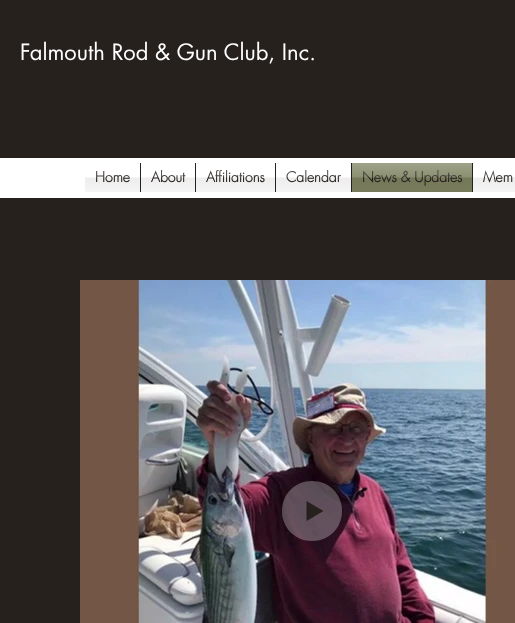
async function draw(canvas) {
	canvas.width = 515;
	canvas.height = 623;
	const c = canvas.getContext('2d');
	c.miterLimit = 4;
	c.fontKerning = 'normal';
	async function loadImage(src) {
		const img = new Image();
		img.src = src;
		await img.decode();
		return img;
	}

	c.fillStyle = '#27211e';
	c.fillRect(0, 0, 515, 623);
	c.font = '22px futura';
	c.fillStyle = '#fff';
	c.fillText('Falmouth Rod & Gun Club, Inc.', 20, 60);
	c.fillRect(0, 158, 515, 40);
	c.font = 'bold 14px futura';
	c.fillStyle = '#27211e';
	c.fillText('Home', 95, 182);
	c.drawImage(await loadImage('img1.png'), 85, 171, 55, 21);
	c.fillRect(140, 163, 1, 29);
	c.fillText('About', 151, 182);
	c.drawImage(await loadImage('img2.png'), 141, 170, 54, 22);
	c.fillRect(195, 163, 1, 29);
	c.fillText('Affiliations', 206, 182);
	c.drawImage(await loadImage('img3.png'), 196, 170, 79, 22);
	c.fillRect(275, 163, 1, 29);
	c.fillText('Calendar', 286, 182);
	c.drawImage(await loadImage('img4.png'), 276, 170, 75, 22);
	c.fillStyle = '#7d8260';
	c.fillRect(352, 163, 120, 29);
	c.fillStyle = '#27211e';
	c.fillRect(351, 163, 1, 29);
	c.fillText('News & Updates', 362, 182);
	c.drawImage(await loadImage('img5.png'), 352, 163, 120, 29);
	c.fillRect(472, 163, 1, 29);
	c.fillText('Mem', 483, 182);
	c.drawImage(await loadImage('img6.png'), 473, 170, 42, 22);
	c.drawImage(await loadImage('img7.png'), 80, 280, 435, 343);
	c.fillStyle = '#ffffff47';
	c.beginPath();
	c.moveTo(312, 481);
	c.bezierCurveTo(329, 481, 342, 494, 342, 511);
	c.bezierCurveTo(342, 528, 329, 541, 312, 541);
	c.bezierCurveTo(295, 541, 282, 528, 282, 511);
	c.bezierCurveTo(282, 494, 295, 481, 312, 481);
	c.closePath();
	c.fill('evenodd');
	c.fillStyle = '#27211e';
	c.beginPath();
	c.moveTo(323.5, 511);
	c.lineTo(306.5, 521);
	c.lineTo(306.5, 501);
	c.closePath();
	c.fill();
}

draw(document.querySelector('canvas'));
